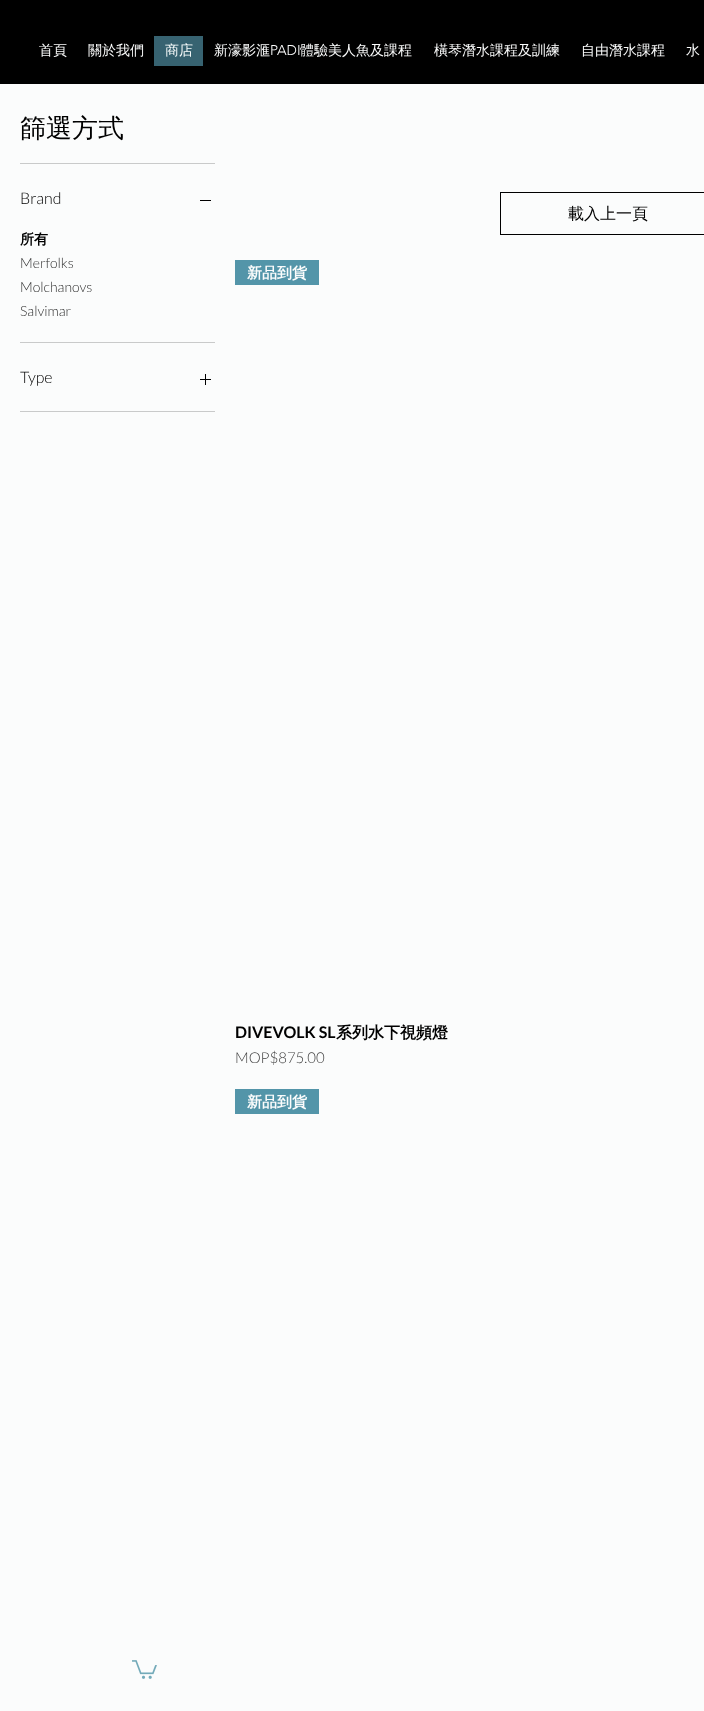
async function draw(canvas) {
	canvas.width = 704;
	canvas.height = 1711;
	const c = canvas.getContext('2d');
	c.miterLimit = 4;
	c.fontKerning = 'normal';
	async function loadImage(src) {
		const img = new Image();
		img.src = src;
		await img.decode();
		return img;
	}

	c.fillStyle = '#fbfcfc';
	c.fillRect(0, 0, 704, 1711);
	c.fillStyle = '#000';
	c.fillRect(0, 0, 704, 84);
	c.font = '500 14px WenQuanYi Zen Hei';
	c.fillStyle = '#fbfcfc';
	c.fillText('首頁', 39, 55);
	c.fillText('關於我們', 88, 55);
	c.fillStyle = '#376371';
	c.fillRect(154, 36, 49, 30);
	c.fillStyle = '#f5fafa';
	c.fillText('商店', 165, 55);
	c.fillStyle = '#fbfcfc';
	c.fillText('新濠影滙', 214, 55);
	c.font = '300 14px "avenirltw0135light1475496"';
	c.fillText('PADI', 270, 55);
	c.font = '500 14px WenQuanYi Zen Hei';
	for (const [text, x, y] of [
		['體驗美人魚及課程', 300, 55],
		['橫琴潛水課程及訓練', 434, 55],
		['自由潛水課程', 581, 55],
		['水', 686, 55],
	]) {
		c.fillText(text, x, y);
	}
	c.fillStyle = '#c9caca';
	c.fillRect(20, 163, 195, 1);
	c.font = '500 26px WenQuanYi Zen Hei';
	c.fillStyle = '#000';
	c.fillText('篩選方式', 20, 137);
	c.fillStyle = '#c9caca';
	c.fillRect(20, 342, 195, 1);
	c.font = '300 16px Lato';
	c.fillStyle = '#000';
	c.fillText('Brand', 20, 204);
	c.fillRect(200, 200, 11, 1);
	c.font = 'bold 14px WenQuanYi Zen Hei';
	c.fillText('所有', 20, 244);
	c.font = '300 14px Lato';
	c.fillStyle = '#323232';
	for (const [text, x, y] of [
		['Merfolks', 20, 268],
		['Molchanovs', 20, 292],
		['Salvimar', 20, 316],
	]) {
		c.fillText(text, x, y);
	}
	c.fillStyle = '#c9caca';
	c.fillRect(20, 411, 195, 1);
	c.font = '300 16px Lato';
	c.fillStyle = '#000';
	c.fillText('Type', 20, 383);
	c.drawImage(await loadImage('img1.png'), 200, 374, 11, 11);
	c.strokeStyle = '#000';
	c.strokeRect(500.5, 192.5, 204, 42);
	c.font = '500 16px WenQuanYi Zen Hei';
	c.fillText('載入上一頁', 568, 219);
	c.fillStyle = '#5395a9';
	c.fillRect(235, 260, 84, 25);
	c.font = 'bold 15px WenQuanYi Zen Hei';
	c.fillStyle = '#fbfcfc';
	c.fillText('新品到貨', 247, 278);
	c.font = 'bold 16px Lato';
	c.fillStyle = '#000';
	c.fillText('DIVEVOLK SL', 235, 1038);
	c.font = 'bold 16px WenQuanYi Zen Hei';
	c.fillText('系列水下視頻燈', 336, 1038);
	c.font = '300 15px Lato';
	c.fillStyle = '#3f3f3f';
	c.fillText('MOP$875.00', 235, 1063);
	c.fillStyle = '#5395a9';
	c.fillRect(235, 1089, 84, 25);
	c.font = 'bold 15px WenQuanYi Zen Hei';
	c.fillStyle = '#fbfcfc';
	c.fillText('新品到貨', 247, 1107);
	c.drawImage(await loadImage('img2.png'), 132, 1660, 25, 19);
}

draw(document.querySelector('canvas'));
